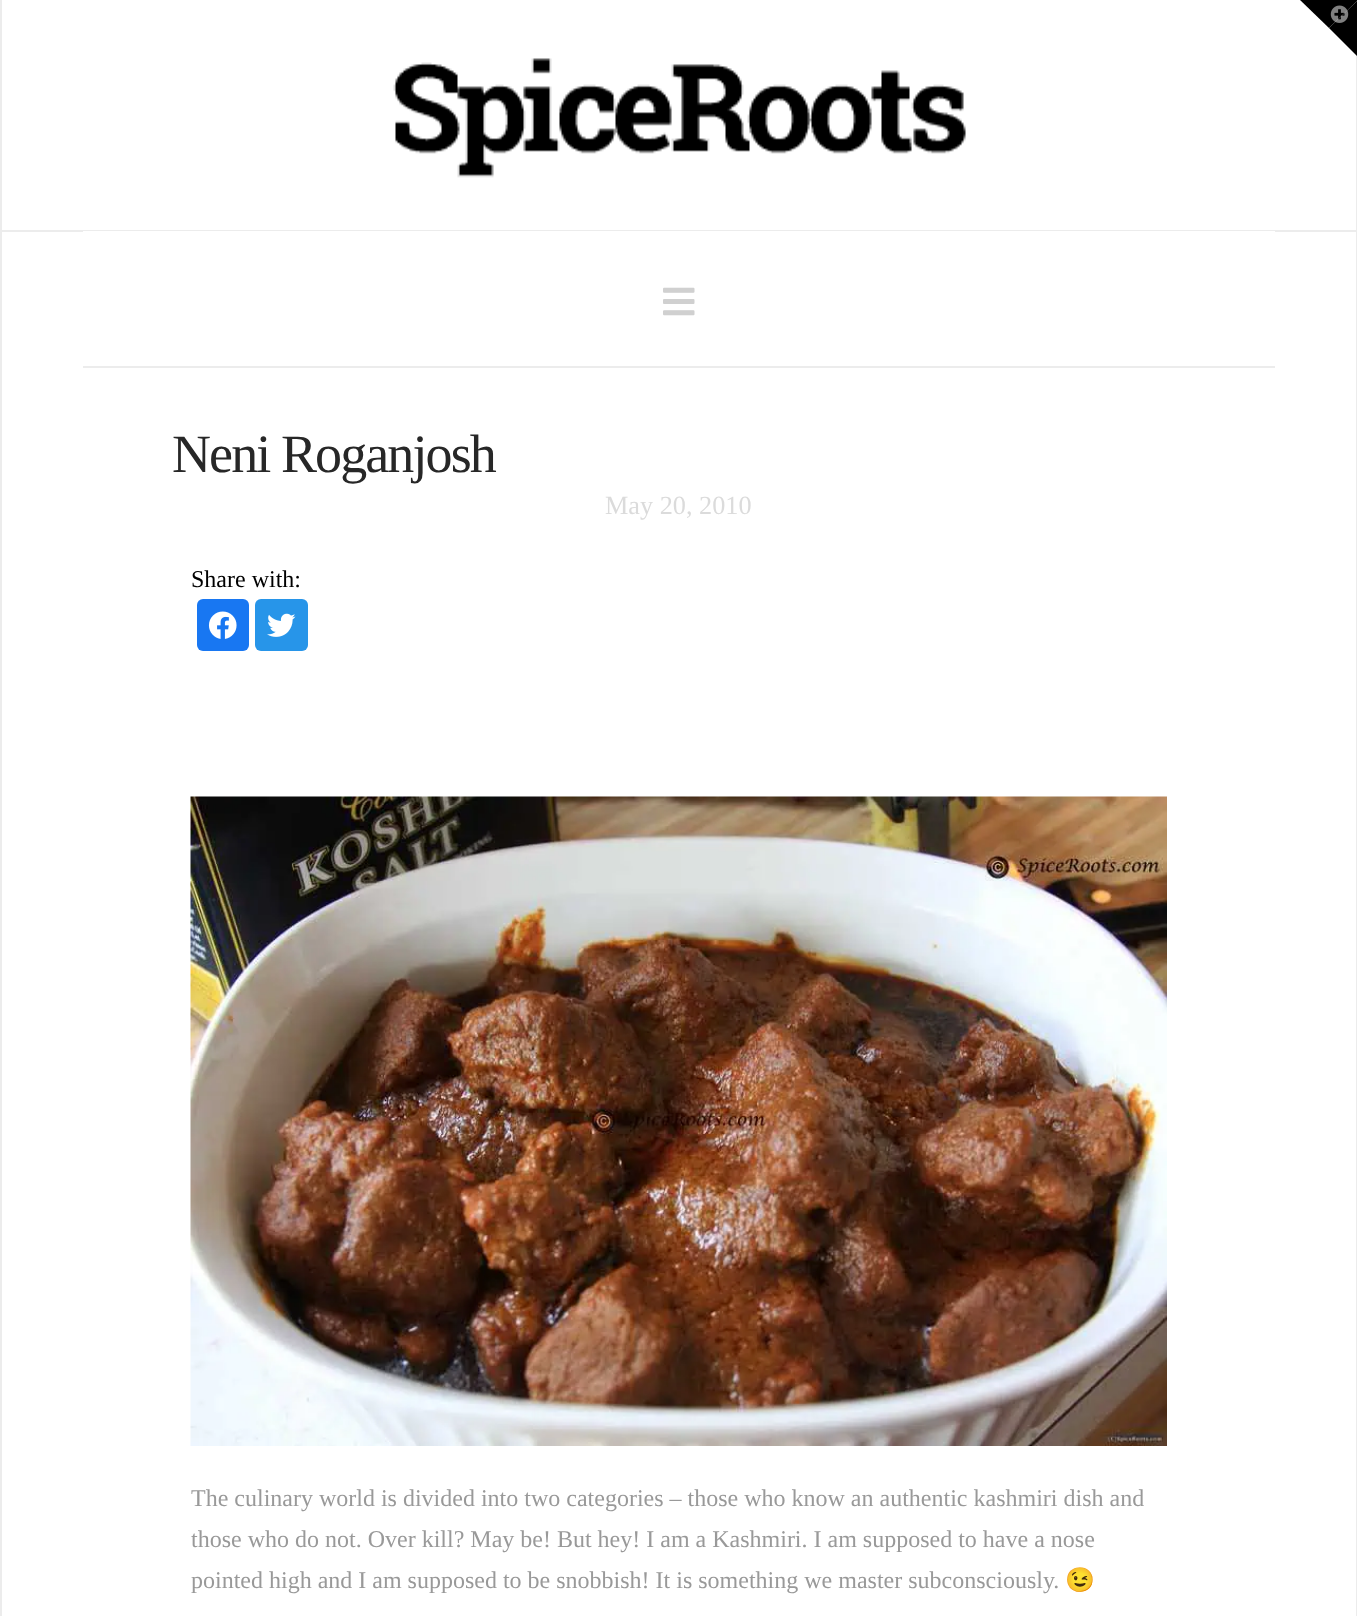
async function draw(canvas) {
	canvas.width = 1357;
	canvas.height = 1616;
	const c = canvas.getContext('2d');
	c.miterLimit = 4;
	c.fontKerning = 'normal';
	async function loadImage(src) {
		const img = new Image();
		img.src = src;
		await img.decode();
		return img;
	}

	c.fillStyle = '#fff';
	c.fillRect(0, 0, 1357, 1616);
	c.fillStyle = '#ececec';
	c.fillRect(1356, 0, 1, 1616);
	c.fillStyle = '#000';
	c.beginPath();
	c.moveTo(1300, 0);
	c.lineTo(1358, 0);
	c.lineTo(1329, 28);
	c.closePath();
	c.fill();
	c.beginPath();
	c.moveTo(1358, 0);
	c.lineTo(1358, 57);
	c.lineTo(1329, 28);
	c.closePath();
	c.fill();
	c.drawImage(await loadImage('img1.png'), 1330, 5, 19, 18);
	c.fillStyle = '#ececec';
	c.fillRect(0, 0, 2, 1616);
	c.fillRect(2, 230, 1354, 2);
	c.drawImage(await loadImage('img2.png'), 393, 58, 573, 120);
	c.fillStyle = '#fff';
	c.fillRect(83, 231, 1192, 1);
	c.fillStyle = '#ececec';
	c.fillRect(83, 366, 1192, 2);
	c.drawImage(await loadImage('img3.png'), 663, 287, 32, 29);
	c.letterSpacing = '-1.9px';
	c.font = '54px Liberation Serif';
	c.fillStyle = '#272727';
	c.fillText('Neni Roganjosh', 172, 472);
	c.letterSpacing = '0px';
	c.font = '26.25px Liberation Serif';
	c.fillStyle = '#dbdbdb';
	c.fillText('May 20, 2010', 605, 514);
	c.font = '24px Liberation Serif';
	c.fillStyle = '#000';
	c.fillText('Share with:', 191, 587);
	c.fillStyle = '#1877f2';
	c.beginPath();
	c.roundRect(197, 599, 52, 52, 6);
	c.fill();
	c.drawImage(await loadImage('img4.png'), 208, 611, 29, 28);
	c.fillStyle = '#2795e9';
	c.beginPath();
	c.roundRect(255, 599, 53, 52, 6);
	c.fill();
	c.drawImage(await loadImage('img5.png'), 267, 613, 29, 24);
	c.drawImage(await loadImage('img6.png'), 190, 796, 977, 650);
	c.fillStyle = '#999';
	for (const [text, x, y] of [
		['The culinary world is divided into two categories – those who know an authentic kashmiri dish and', 191, 1506],
		['those who do not. Over kill? May be! But hey! I am a Kashmiri. I am supposed to have a nose', 191, 1547],
		['pointed high and I am supposed to be snobbish! It is something we master subconsciously.', 191, 1588],
	]) {
		c.fillText(text, x, y);
	}
	c.font = '24px Noto Color Emoji';
	c.fillText('😉', 1065, 1588);
}

draw(document.querySelector('canvas'));
